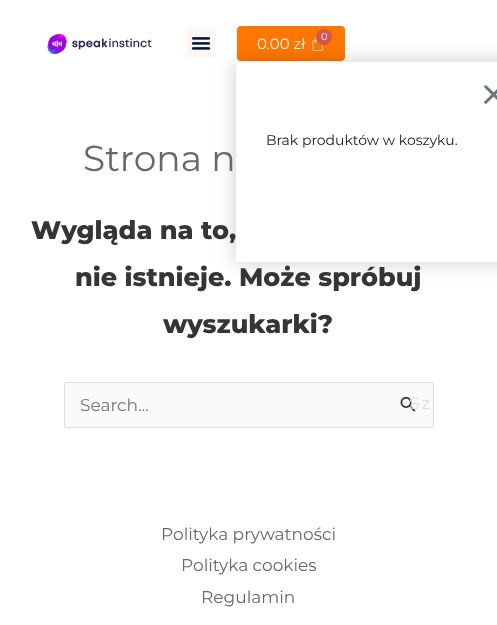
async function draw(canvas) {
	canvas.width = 497;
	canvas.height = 625;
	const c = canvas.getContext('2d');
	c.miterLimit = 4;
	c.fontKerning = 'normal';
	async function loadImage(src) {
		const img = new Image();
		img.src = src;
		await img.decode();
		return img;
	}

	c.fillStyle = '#fff';
	c.fillRect(0, 0, 497, 625);
	c.drawImage(await loadImage('img1.png'), 47, 33, 105, 22);
	c.fillStyle = '#fff7f1';
	c.fillRect(186, 28, 30, 30);
	c.drawImage(await loadImage('img2.png'), 191, 37, 20, 13);
	c.fillStyle = '#f70';
	c.beginPath();
	c.roundRect(236.5, 25.5, 109, 36, 4.5);
	c.fill();
	c.strokeStyle = '#fff';
	c.stroke();
	c.font = '15px Montserrat';
	c.fillStyle = '#fff';
	c.fillText('0.00 zł', 257, 49);
	c.drawImage(await loadImage('img3.png'), 312, 37, 11, 14);
	c.fillStyle = '#d9534f';
	c.beginPath();
	c.arc(324, 37, 8, 0, 2 * Math.PI);
	c.fill();
	c.font = '10px Montserrat';
	c.fillStyle = '#fff';
	c.fillText('0', 321, 40);
	c.fillStyle = '#00000033';
	c.filter = 'blur(10px)';
	c.beginPath();
	c.rect(236, 62, 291, 200);
	c.fill();
	c.filter = 'none';
	c.fillStyle = '#fff';
	c.fillRect(236, 62, 261, 200);
	c.fillStyle = '#69727d';
	c.beginPath();
	c.moveTo(486.5, 85.5);
	c.lineTo(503, 101.5);
	c.bezierCurveTo(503, 102, 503, 102.5, 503, 103);
	c.lineTo(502, 103.5);
	c.bezierCurveTo(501.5, 104, 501, 104, 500.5, 103.5);
	c.lineTo(484.5, 87.5);
	c.bezierCurveTo(484, 87, 484, 86.5, 484.5, 86);
	c.lineTo(485, 85.5);
	c.bezierCurveTo(485.5, 85, 486, 85, 486.5, 85.5);
	c.closePath();
	c.fill();
	c.beginPath();
	c.moveTo(484.5, 101.5);
	c.lineTo(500.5, 85.5);
	c.bezierCurveTo(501, 85, 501.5, 85, 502, 85.5);
	c.lineTo(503, 86);
	c.bezierCurveTo(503, 86.5, 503, 87, 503, 87.5);
	c.lineTo(486.5, 103.5);
	c.bezierCurveTo(486, 104, 485.5, 104, 485, 103.5);
	c.lineTo(484.5, 103);
	c.bezierCurveTo(484, 102.5, 484, 102, 484.5, 101.5);
	c.closePath();
	c.fill();
	c.font = '14px Montserrat';
	c.fillStyle = '#181818';
	c.fillText('Brak produktów w koszyku.', 266, 145);
	c.font = '36px Montserrat';
	c.fillStyle = '#6c6666';
	c.fillText('Strona n', 83, 171);
	c.font = '800 25.5px Montserrat';
	c.fillStyle = '#353535';
	for (const [text, x, y] of [
		['Wygląda na to,', 31, 239],
		['nie istnieje. Może spróbuj', 75, 286],
		['wyszukarki?', 163, 333],
	]) {
		c.fillText(text, x, y);
	}
	c.fillStyle = '#fafafa';
	c.beginPath();
	c.roundRect(64.5, 382.5, 369, 45, 1.5);
	c.fill();
	c.strokeStyle = '#ddd';
	c.stroke();
	c.font = '17px Montserrat';
	c.fillStyle = '#757575';
	c.fillText('Search...', 80, 411);
	c.drawImage(await loadImage('img4.png'), 400, 396, 16, 16);
	c.letterSpacing = '2px';
	c.fillStyle = '#ddd';
	c.fillText('Sz', 409, 409);
	c.letterSpacing = '0px';
	c.fillStyle = '#6c6666';
	for (const [text, x, y] of [
		['Polityka prywatności', 161, 540],
		['Polityka cookies', 181, 571],
		['Regulamin', 201, 603],
	]) {
		c.fillText(text, x, y);
	}
}

draw(document.querySelector('canvas'));
